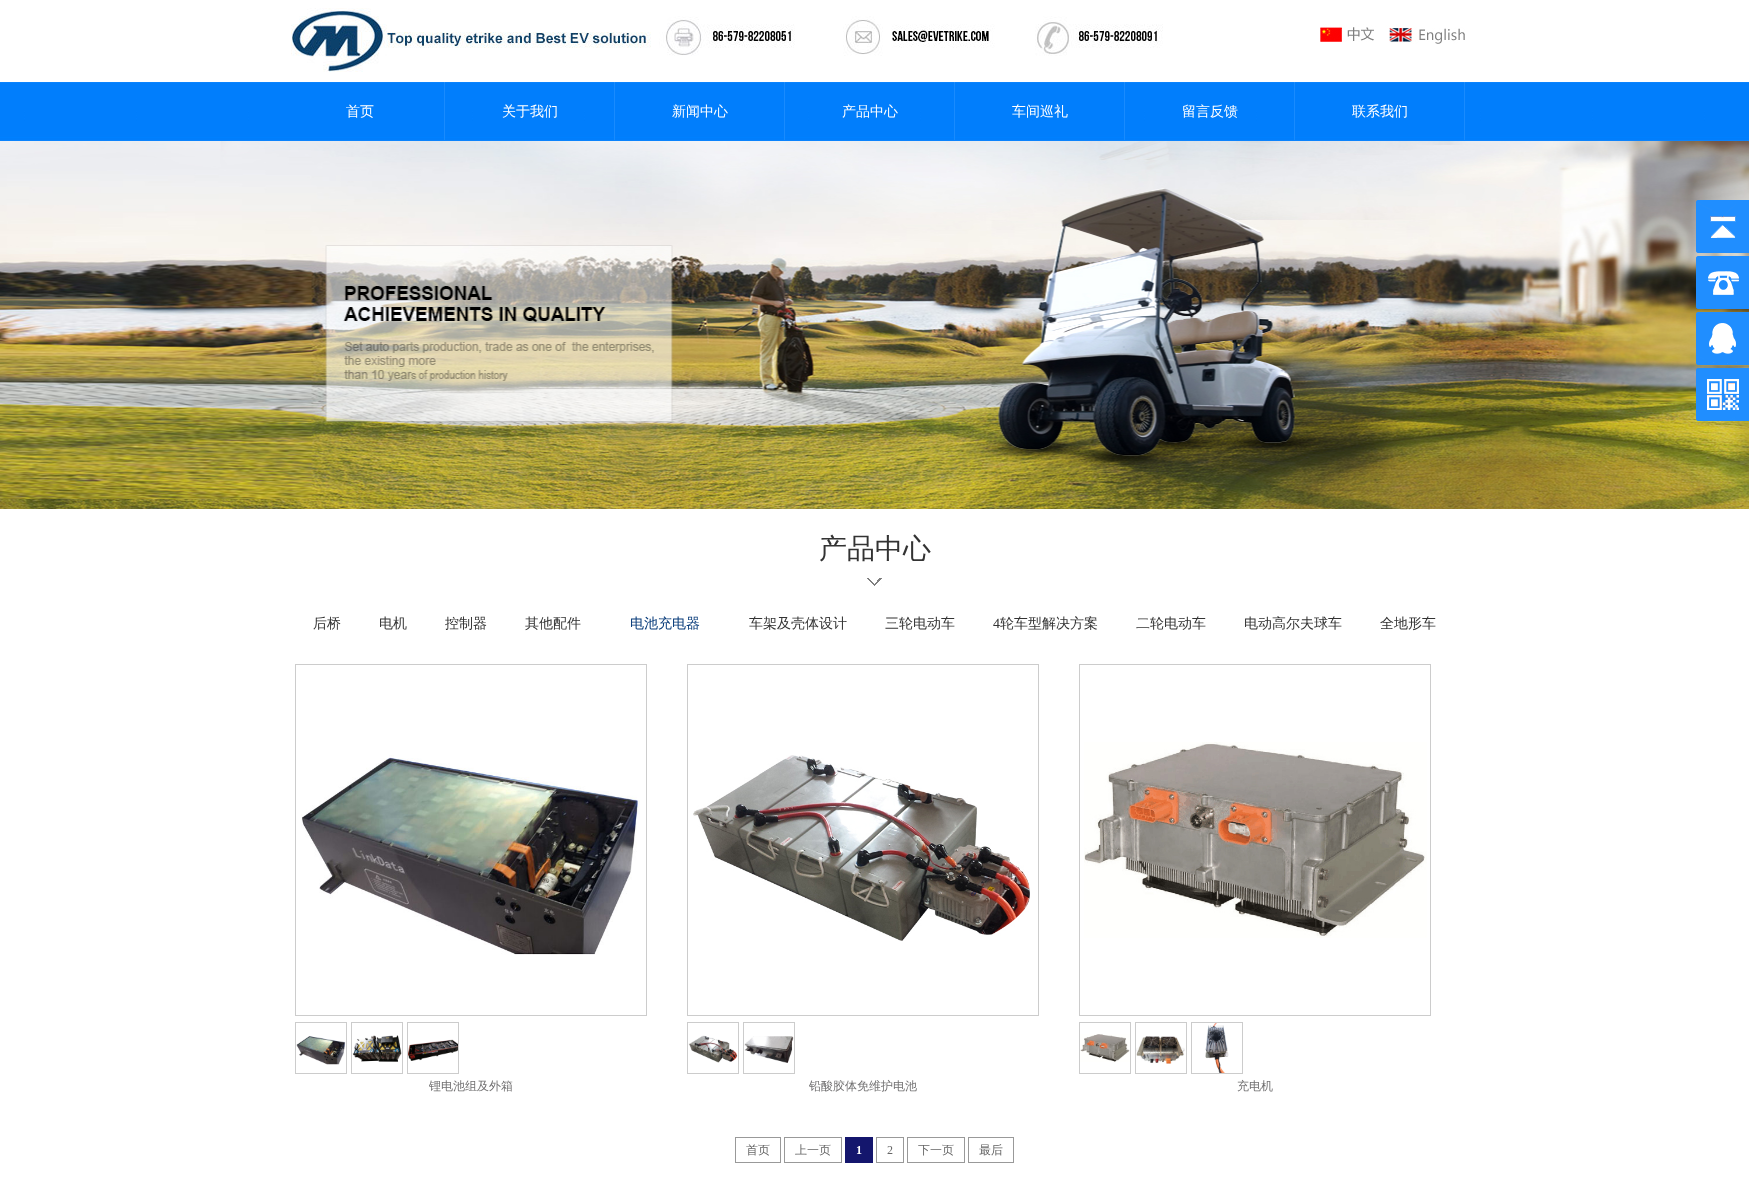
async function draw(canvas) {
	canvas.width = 1749;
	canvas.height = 1191;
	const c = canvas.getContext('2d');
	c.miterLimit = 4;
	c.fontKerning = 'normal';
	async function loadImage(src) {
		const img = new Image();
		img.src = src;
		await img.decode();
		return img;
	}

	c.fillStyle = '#fff';
	c.fillRect(0, 0, 1749, 1191);
	c.drawImage(await loadImage('img1.png'), 291, 8, 872, 64);
	c.drawImage(await loadImage('img2.png'), 1323, 24, 78, 3);
	c.drawImage(await loadImage('img3.png'), 1320, 27, 54, 15);
	c.drawImage(await loadImage('img4.png'), 1389, 27, 76, 17);
	c.drawImage(await loadImage('img5.png'), 0, 82, 1749, 59);
	c.drawImage(await loadImage('img6.png'), 444, 82, 1, 58);
	c.font = '500 14px WenQuanYi Zen Hei';
	c.fillText('首页', 346, 116);
	c.drawImage(await loadImage('img6.png'), 614, 82, 1, 58);
	c.fillText('关于我们', 502, 116);
	c.drawImage(await loadImage('img6.png'), 784, 82, 1, 58);
	c.fillText('新闻中心', 672, 116);
	c.drawImage(await loadImage('img6.png'), 954, 82, 1, 58);
	c.fillText('产品中心', 842, 116);
	c.drawImage(await loadImage('img6.png'), 1124, 82, 1, 58);
	c.fillText('车间巡礼', 1012, 116);
	c.drawImage(await loadImage('img6.png'), 1294, 82, 1, 58);
	c.fillText('留言反馈', 1182, 116);
	c.drawImage(await loadImage('img6.png'), 1464, 82, 1, 58);
	c.fillText('联系我们', 1352, 116);
	c.drawImage(await loadImage('img7.png'), 0, 141, 1749, 368);
	c.fillStyle = '#208eff';
	c.beginPath();
	c.roundRect(1696, 200, 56, 53, 3);
	c.fill();
	c.drawImage(await loadImage('img8.png'), 1696, 200, 40, 53);
	c.beginPath();
	c.roundRect(1696, 256, 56, 53, 3);
	c.fill();
	c.drawImage(await loadImage('img9.png'), 1696, 256, 43, 53);
	c.beginPath();
	c.roundRect(1696, 312, 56, 53, 3);
	c.fill();
	c.drawImage(await loadImage('img10.png'), 1696, 312, 41, 53);
	c.beginPath();
	c.roundRect(1696, 368, 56, 53, 3);
	c.fill();
	c.drawImage(await loadImage('img11.png'), 1696, 368, 43, 53);
	c.drawImage(await loadImage('img12.png'), 867, 578, 15, 8);
	c.font = '500 28px WenQuanYi Zen Hei';
	c.fillStyle = '#333';
	c.fillText('产品中心', 819, 558);
	c.font = '500 14px WenQuanYi Zen Hei';
	for (const [text, x, y] of [
		['后桥', 313, 628],
		['电机', 379, 628],
		['控制器', 445, 628],
		['其他配件', 525, 628],
	]) {
		c.fillText(text, x, y);
	}
	c.fillStyle = '#043878';
	c.fillText('电池充电器', 630, 628);
	c.fillStyle = '#333';
	c.fillText('车架及壳体设计', 749, 628);
	c.fillText('三轮电动车', 885, 628);
	c.font = '14px Liberation Serif';
	c.fillText('4', 993, 628);
	c.font = '500 14px WenQuanYi Zen Hei';
	for (const [text, x, y] of [
		['轮车型解决方案', 1000, 628],
		['二轮电动车', 1136, 628],
		['电动高尔夫球车', 1244, 628],
		['全地形车', 1380, 628],
	]) {
		c.fillText(text, x, y);
	}
	c.strokeStyle = '#ccc';
	c.strokeRect(295.5, 664.5, 351, 351);
	c.drawImage(await loadImage('img13.png'), 301, 755, 339, 200);
	for (const [x, y, w, h, color] of [
		[296, 1022, 51, 51, '#ccc'],
		[295, 1073, 52, 1, '#ccc'],
		[295, 1022, 1, 52, '#ccc'],
		[296, 1023, 50, 50, '#fff'],
	]) {
		c.fillStyle = color;
		c.fillRect(x, y, w, h);
	}
	c.drawImage(await loadImage('img14.png'), 296, 1036, 50, 29);
	for (const [x, y, w, h, color] of [
		[352, 1022, 51, 51, '#ccc'],
		[351, 1073, 52, 1, '#ccc'],
		[351, 1022, 1, 52, '#ccc'],
		[352, 1023, 50, 50, '#fff'],
	]) {
		c.fillStyle = color;
		c.fillRect(x, y, w, h);
	}
	c.drawImage(await loadImage('img15.png'), 352, 1035, 50, 27);
	for (const [x, y, w, h, color] of [
		[408, 1022, 51, 51, '#ccc'],
		[407, 1073, 52, 1, '#ccc'],
		[407, 1022, 1, 52, '#ccc'],
		[408, 1023, 50, 50, '#fff'],
	]) {
		c.fillStyle = color;
		c.fillRect(x, y, w, h);
	}
	c.drawImage(await loadImage('img16.png'), 408, 1039, 50, 22);
	c.font = '500 12px WenQuanYi Zen Hei';
	c.fillStyle = '#727172';
	c.fillText('锂电池组及外箱', 429, 1090);
	c.strokeRect(687.5, 664.5, 351, 351);
	c.drawImage(await loadImage('img17.png'), 693, 755, 337, 186);
	for (const [x, y, w, h, color] of [
		[688, 1022, 51, 51, '#ccc'],
		[687, 1073, 52, 1, '#ccc'],
		[687, 1022, 1, 52, '#ccc'],
		[688, 1023, 50, 50, '#fff'],
	]) {
		c.fillStyle = color;
		c.fillRect(x, y, w, h);
	}
	c.drawImage(await loadImage('img18.png'), 688, 1035, 50, 28);
	for (const [x, y, w, h, color] of [
		[744, 1022, 51, 51, '#ccc'],
		[743, 1073, 52, 1, '#ccc'],
		[743, 1022, 1, 52, '#ccc'],
		[744, 1023, 50, 50, '#fff'],
	]) {
		c.fillStyle = color;
		c.fillRect(x, y, w, h);
	}
	c.drawImage(await loadImage('img19.png'), 744, 1036, 50, 27);
	c.fillStyle = '#727172';
	c.fillText('铅酸胶体免维护电池', 809, 1090);
	c.strokeRect(1079.5, 664.5, 351, 351);
	c.drawImage(await loadImage('img20.png'), 1084, 742, 343, 196);
	for (const [x, y, w, h, color] of [
		[1080, 1022, 51, 51, '#ccc'],
		[1079, 1073, 52, 1, '#ccc'],
		[1079, 1022, 1, 52, '#ccc'],
		[1080, 1023, 50, 50, '#fff'],
	]) {
		c.fillStyle = color;
		c.fillRect(x, y, w, h);
	}
	c.drawImage(await loadImage('img21.png'), 1080, 1034, 50, 28);
	for (const [x, y, w, h, color] of [
		[1136, 1022, 51, 51, '#ccc'],
		[1135, 1073, 52, 1, '#ccc'],
		[1135, 1022, 1, 52, '#ccc'],
		[1136, 1023, 50, 50, '#fff'],
	]) {
		c.fillStyle = color;
		c.fillRect(x, y, w, h);
	}
	c.drawImage(await loadImage('img22.png'), 1136, 1036, 49, 28);
	for (const [x, y, w, h, color] of [
		[1192, 1022, 51, 51, '#ccc'],
		[1191, 1073, 52, 1, '#ccc'],
		[1191, 1022, 1, 52, '#ccc'],
		[1192, 1023, 50, 50, '#fff'],
	]) {
		c.fillStyle = color;
		c.fillRect(x, y, w, h);
	}
	c.drawImage(await loadImage('img23.png'), 1205, 1023, 24, 50);
	c.fillStyle = '#727172';
	c.fillText('充电机', 1237, 1090);
	c.strokeStyle = '#999';
	c.strokeRect(735.5, 1137.5, 45, 25);
	c.fillStyle = '#666';
	c.fillText('首页', 746, 1154);
	c.strokeRect(784.5, 1137.5, 57, 25);
	c.fillText('上一页', 795, 1154);
	c.fillStyle = '#14166d';
	c.fillRect(845, 1137, 28, 26);
	c.font = 'bold 12px Liberation Serif';
	c.fillStyle = '#fff';
	c.fillText('1', 856, 1154);
	c.strokeRect(876.5, 1137.5, 27, 25);
	c.font = '12px Liberation Serif';
	c.fillStyle = '#666';
	c.fillText('2', 887, 1154);
	c.strokeRect(907.5, 1137.5, 57, 25);
	c.font = '500 12px WenQuanYi Zen Hei';
	c.fillText('下一页', 918, 1154);
	c.strokeRect(968.5, 1137.5, 45, 25);
	c.fillText('最后', 979, 1154);
}

draw(document.querySelector('canvas'));
